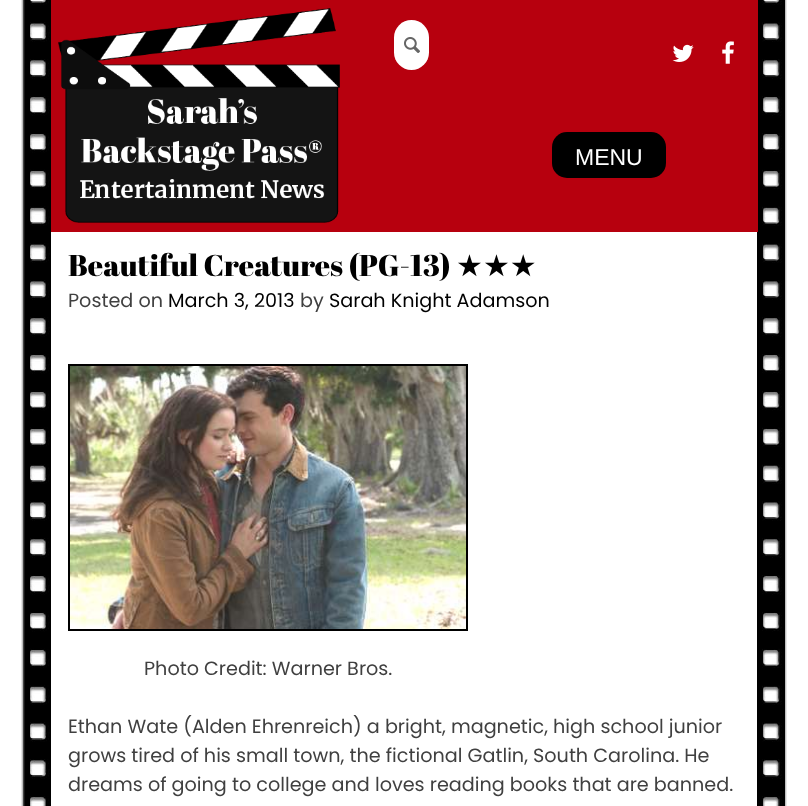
async function draw(canvas) {
	canvas.width = 808;
	canvas.height = 806;
	const c = canvas.getContext('2d');
	c.miterLimit = 4;
	c.fontKerning = 'normal';
	async function loadImage(src) {
		const img = new Image();
		img.src = src;
		await img.decode();
		return img;
	}

	c.fillStyle = '#fff';
	c.fillRect(0, 0, 808, 806);
	c.drawImage(await loadImage('img1.png'), 21, 0, 766, 806);
	c.fillStyle = '#b7000e';
	c.fillRect(51, 0, 707, 232);
	c.drawImage(await loadImage('img2.png'), 58, 8, 282, 215);
	c.fillStyle = '#fff';
	c.beginPath();
	c.roundRect(394, 20, 35, 50, 17.5);
	c.fill();
	c.drawImage(await loadImage('img3.png'), 404, 37, 16, 16);
	c.drawImage(await loadImage('img4.png'), 672, 44, 22, 18);
	c.drawImage(await loadImage('img5.png'), 722, 41, 12, 23);
	c.fillStyle = '#000';
	c.beginPath();
	c.roundRect(552, 132, 114, 46, 15);
	c.fill();
	c.font = '23px Liberation Sans';
	c.fillStyle = '#fff';
	c.fillText('MENU', 575, 165);
	c.font = '30px Abril Fatface';
	c.fillStyle = '#000';
	c.fillText('Beautiful Creatures (PG-13)', 68, 276);
	c.font = '30px DejaVu Sans';
	c.fillText('★★★', 456, 276);
	c.font = '19.2px Poppins';
	c.fillStyle = '#404040';
	c.fillText('Posted on', 68, 307);
	c.fillStyle = '#000';
	c.fillText('March 3, 2013', 168, 307);
	c.fillStyle = '#404040';
	c.fillText('by', 300, 307);
	c.fillStyle = '#000';
	c.fillText('Sarah Knight Adamson', 329, 307);
	c.strokeStyle = '#000';
	c.lineWidth = 2;
	c.strokeRect(69, 365, 398, 265);
	c.drawImage(await loadImage('img6.png'), 70, 366, 396, 263);
	c.fillStyle = '#404040';
	for (const [text, x, y] of [
		['Photo Credit: Warner Bros.', 144, 675],
		['Ethan Wate (Alden Ehrenreich) a bright, magnetic, high school junior', 68, 733],
		['grows tired of his small town, the fictional Gatlin, South Carolina. He', 68, 762],
		['dreams of going to college and loves reading books that are banned.', 68, 791],
	]) {
		c.fillText(text, x, y);
	}
}

draw(document.querySelector('canvas'));
